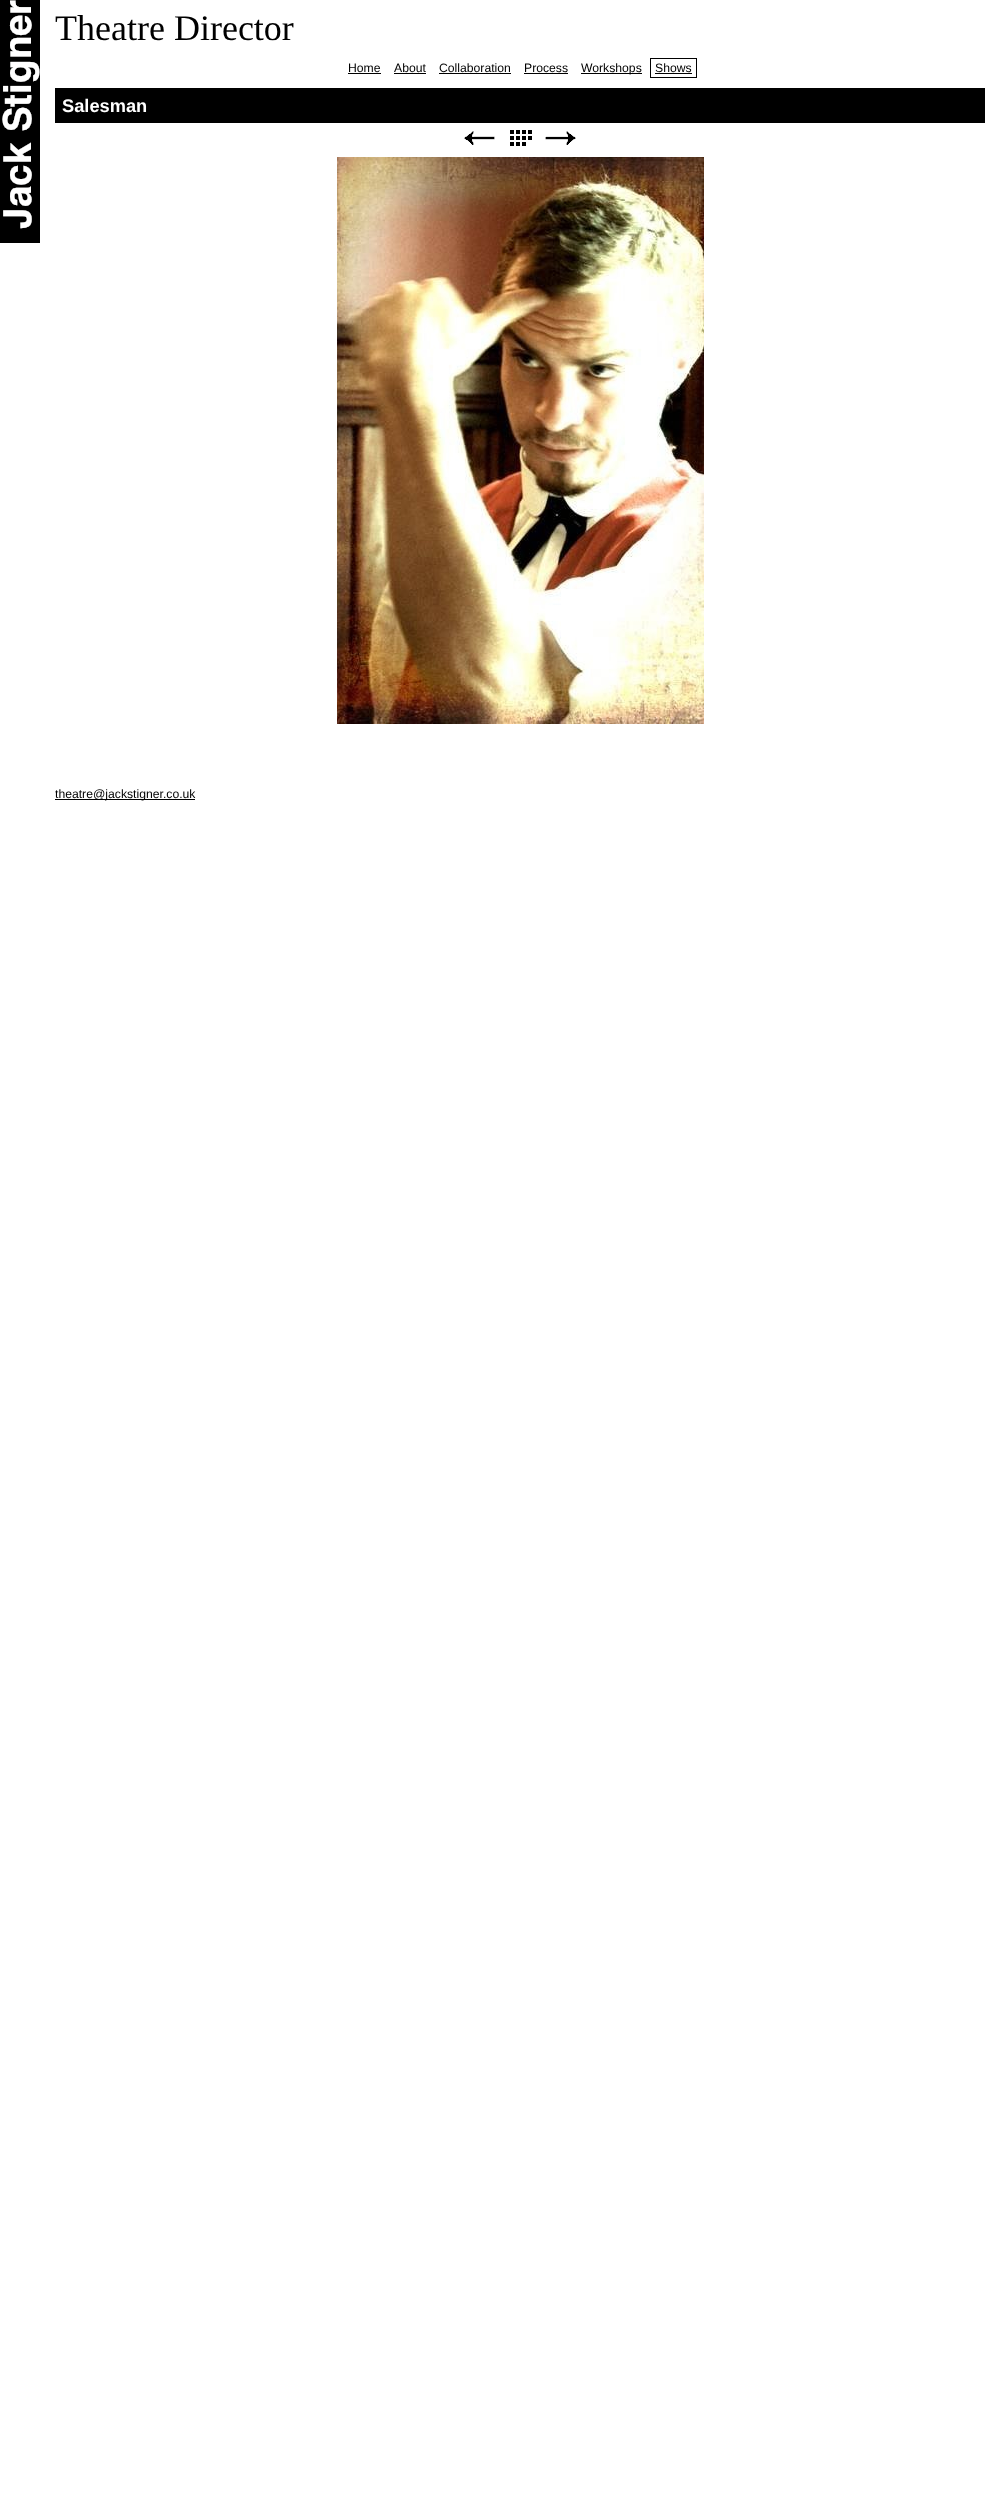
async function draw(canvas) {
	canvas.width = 995;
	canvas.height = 2500;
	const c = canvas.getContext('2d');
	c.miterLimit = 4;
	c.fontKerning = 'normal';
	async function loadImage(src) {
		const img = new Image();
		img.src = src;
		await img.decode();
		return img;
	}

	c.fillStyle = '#fff';
	c.fillRect(0, 0, 995, 2500);
	c.drawImage(await loadImage('img1.png'), 0, 0, 40, 243);
	c.font = '36px Liberation Serif';
	c.fillStyle = '#000';
	c.fillText('Theatre Director', 55, 40);
	c.font = '12.2px Liberation Sans';
	c.fillText('Home', 348, 72);
	c.fillRect(348, 73, 33, 1);
	c.fillText('About', 394, 72);
	c.fillRect(394, 73, 32, 1);
	c.fillText('Collaboration', 439, 72);
	c.fillRect(439, 73, 72, 1);
	c.fillText('Process', 524, 72);
	c.fillRect(524, 73, 44, 1);
	c.fillRect(581, 73, 61, 1);
	c.fillText('Workshops', 581, 72);
	c.strokeStyle = '#000';
	c.strokeRect(650.5, 58.5, 46, 19);
	c.fillText('Shows', 655, 72);
	c.fillRect(655, 73, 37, 1);
	c.fillRect(55, 88, 930, 35);
	c.font = 'bold 18.25px Liberation Sans';
	c.fillStyle = '#fff';
	c.fillText('Salesman', 62, 112);
	c.drawImage(await loadImage('img2.png'), 464, 131, 31, 14);
	c.drawImage(await loadImage('img3.png'), 510, 130, 22, 16);
	c.drawImage(await loadImage('img4.png'), 545, 131, 31, 14);
	c.drawImage(await loadImage('img5.png'), 337, 157, 367, 567);
	c.fillStyle = '#000';
	c.fillRect(55, 799, 140, 1);
	c.font = '12.2px Liberation Sans';
	c.fillText('theatre@jackstigner.co.uk', 55, 798);
}

draw(document.querySelector('canvas'));
